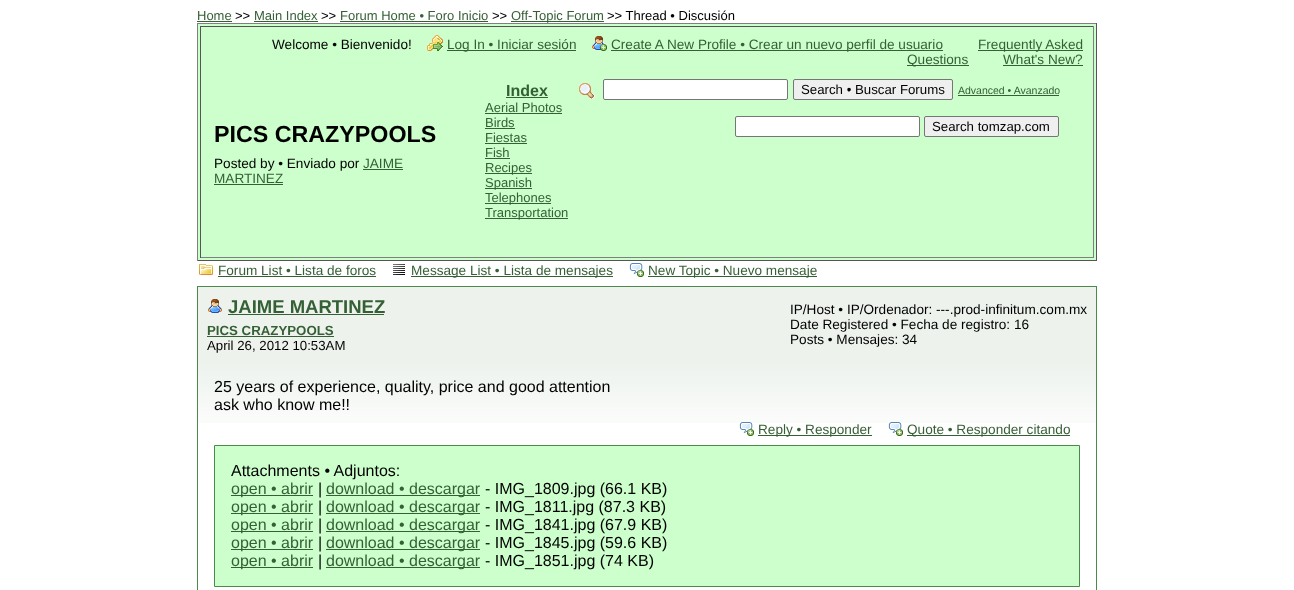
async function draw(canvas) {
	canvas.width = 1294;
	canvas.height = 590;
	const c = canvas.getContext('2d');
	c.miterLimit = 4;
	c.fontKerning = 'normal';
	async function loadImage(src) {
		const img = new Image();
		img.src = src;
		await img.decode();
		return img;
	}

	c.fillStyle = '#fff';
	c.fillRect(0, 0, 1294, 590);
	c.font = '13px Liberation Sans';
	c.fillStyle = '#355f35';
	c.fillText('Home', 197, 20);
	c.fillRect(197, 21, 35, 1);
	c.fillStyle = '#000';
	c.fillText('>>', 235, 20);
	c.fillStyle = '#355f35';
	c.fillText('Main Index', 254, 20);
	c.fillRect(254, 21, 64, 1);
	c.fillStyle = '#000';
	c.fillText('>>', 321, 20);
	c.fillStyle = '#355f35';
	c.fillText('Forum Home • Foro Inicio', 340, 20);
	c.fillRect(340, 21, 148, 1);
	c.fillStyle = '#000';
	c.fillText('>>', 492, 20);
	c.fillStyle = '#355f35';
	c.fillRect(511, 21, 93, 1);
	c.fillText('Off-Topic Forum', 511, 20);
	c.fillStyle = '#000';
	c.fillText('>> Thread • Discusión', 607, 20);
	for (const [x, y, w, h, color] of [
		[198, 24, 898, 236, '#cfc'],
		[197, 23, 900, 1, '#808080'],
		[1096, 23, 1, 238, '#555'],
		[197, 260, 900, 1, '#555'],
		[197, 23, 1, 238, '#808080'],
		[200, 26, 894, 1, '#555'],
		[1093, 26, 1, 232, '#808080'],
		[200, 257, 894, 1, '#808080'],
		[200, 26, 1, 232, '#555'],
	]) {
		c.fillStyle = color;
		c.fillRect(x, y, w, h);
	}
	c.font = '13.6px Liberation Sans';
	c.fillStyle = '#000';
	c.fillText('Welcome • Bienvenido!', 272, 49);
	c.drawImage(await loadImage('img1.png'), 427, 35, 16, 16);
	c.fillStyle = '#355f35';
	c.fillRect(447, 50, 129, 1);
	c.fillText('Log In • Iniciar sesión', 447, 49);
	c.drawImage(await loadImage('img2.png'), 592, 36, 15, 15);
	c.fillRect(611, 50, 332, 1);
	c.fillText('Create A New Profile • Crear un nuevo perfil de usuario', 611, 49);
	c.fillRect(978, 50, 105, 1);
	c.fillText('Frequently Asked', 978, 49);
	c.fillRect(907, 65, 62, 1);
	c.fillText('Questions', 907, 64);
	c.fillText('What\'s New?', 1003, 64);
	c.fillRect(1003, 65, 80, 1);
	c.font = 'bold 23.25px Liberation Sans';
	c.fillStyle = '#000';
	c.fillText('PICS CRAZYPOOLS', 214, 142);
	c.font = '13.6px Liberation Sans';
	c.fillText('Posted by • Enviado por', 214, 168);
	c.fillStyle = '#355f35';
	c.fillText('JAIME', 363, 168);
	c.fillRect(363, 169, 40, 1);
	c.fillText('MARTINEZ', 214, 183);
	c.fillRect(214, 184, 69, 1);
	c.font = 'bold 16px Liberation Sans';
	c.fillText('Index', 506, 96);
	c.fillRect(506, 97, 42, 1);
	c.font = '13px Liberation Sans';
	c.fillText('Aerial Photos', 485, 112);
	c.fillRect(485, 113, 77, 1);
	c.fillText('Birds', 485, 127);
	c.fillRect(485, 128, 30, 1);
	c.fillText('Fiestas', 485, 142);
	c.fillRect(485, 143, 42, 1);
	c.fillText('Fish', 485, 157);
	c.fillRect(485, 158, 25, 1);
	c.fillRect(485, 173, 47, 1);
	c.fillText('Recipes', 485, 172);
	c.fillRect(485, 188, 47, 1);
	c.fillText('Spanish', 485, 187);
	c.fillRect(485, 203, 66, 1);
	c.fillText('Telephones', 485, 202);
	c.fillRect(485, 218, 83, 1);
	c.fillText('Transportation', 485, 217);
	c.drawImage(await loadImage('img3.png'), 579, 83, 16, 16);
	c.fillStyle = '#fff';
	c.beginPath();
	c.roundRect(603.5, 79.5, 184, 20, 1.5);
	c.fill();
	c.strokeStyle = '#767676';
	c.stroke();
	c.fillStyle = '#efefef';
	c.beginPath();
	c.roundRect(793.5, 79.5, 159, 20, 1.5);
	c.fill();
	c.stroke();
	c.font = '13.25px Liberation Sans';
	c.fillStyle = '#000';
	c.fillText('Search • Buscar Forums', 801, 94);
	c.font = '10.5px Liberation Sans';
	c.fillStyle = '#355f35';
	c.fillText('Advanced • Avanzado', 958, 94);
	c.fillRect(958, 95, 101, 1);
	c.fillStyle = '#fff';
	c.beginPath();
	c.roundRect(735.5, 116.5, 184, 20, 1.5);
	c.fill();
	c.stroke();
	c.fillStyle = '#efefef';
	c.beginPath();
	c.roundRect(924.5, 116.5, 134, 20, 1.5);
	c.fill();
	c.stroke();
	c.font = '13.25px Liberation Sans';
	c.fillStyle = '#000';
	c.fillText('Search tomzap.com', 932, 131);
	c.drawImage(await loadImage('img4.png'), 199, 264, 14, 11);
	c.font = '13.6px Liberation Sans';
	c.fillStyle = '#355f35';
	c.fillText('Forum List • Lista de foros', 218, 275);
	c.fillRect(218, 276, 158, 1);
	c.drawImage(await loadImage('img5.png'), 393, 264, 12, 11);
	c.fillRect(411, 276, 202, 1);
	c.fillText('Message List • Lista de mensajes', 411, 275);
	c.drawImage(await loadImage('img6.png'), 629, 263, 15, 14);
	c.fillRect(648, 276, 169, 1);
	c.fillText('New Topic • Nuevo mensaje', 648, 275);
	for (const [x, y, w, h, color] of [
		[198, 287, 898, 75, '#edf2ed'],
		[197, 286, 900, 1, '#4d894d'],
		[1096, 286, 1, 304, '#4d894d'],
		[197, 286, 1, 304, '#4d894d'],
	]) {
		c.fillStyle = color;
		c.fillRect(x, y, w, h);
	}
	c.drawImage(await loadImage('img7.png'), 208, 299, 14, 14);
	c.font = 'bold 18.5px Liberation Sans';
	c.fillStyle = '#355f35';
	c.fillText('JAIME MARTINEZ', 228, 313);
	c.fillRect(228, 314, 156, 1);
	c.font = 'bold 13.25px Liberation Sans';
	c.fillText('PICS CRAZYPOOLS', 207, 335);
	c.fillRect(207, 336, 127, 1);
	c.font = '13.25px Liberation Sans';
	c.fillStyle = '#000';
	c.fillText('April 26, 2012 10:53AM', 207, 350);
	c.font = '13.6px Liberation Sans';
	for (const [text, x, y] of [
		['IP/Host • IP/Ordenador: ---.prod-infinitum.com.mx', 790, 314],
		['Date Registered • Fecha de registro: 16', 790, 329],
		['Posts • Mensajes: 34', 790, 344],
	]) {
		c.fillText(text, x, y);
	}
	c.drawImage(await loadImage('img8.png'), 198, 362, 898, 61);
	c.font = '16px Liberation Sans';
	c.fillText('25 years of experience, quality, price and good attention', 214, 392);
	c.fillText('ask who know me!!', 214, 410);
	c.drawImage(await loadImage('img9.png'), 739, 422, 15, 14);
	c.fillStyle = '#355f35';
	c.fillRect(758, 435, 114, 1);
	c.font = '13.6px Liberation Sans';
	c.fillText('Reply • Responder', 758, 434);
	c.drawImage(await loadImage('img9.png'), 888, 422, 15, 14);
	c.fillRect(907, 435, 163, 1);
	c.fillText('Quote • Responder citando', 907, 434);
	c.fillStyle = '#cfc';
	c.beginPath();
	c.rect(214.5, 445.5, 865, 141);
	c.fill();
	c.strokeStyle = '#4d894d';
	c.stroke();
	c.font = '16px Liberation Sans';
	c.fillStyle = '#000';
	c.fillText('Attachments • Adjuntos:', 231, 476);
	c.fillStyle = '#355f35';
	c.fillRect(231, 495, 82, 1);
	c.fillText('open • abrir', 231, 494);
	c.fillStyle = '#000';
	c.fillText('|', 318, 494);
	c.fillStyle = '#355f35';
	c.fillRect(326, 495, 154, 1);
	c.fillText('download • descargar', 326, 494);
	c.fillStyle = '#000';
	c.fillText('- IMG_1809.jpg (66.1 KB)', 485, 494);
	c.fillStyle = '#355f35';
	c.fillRect(231, 513, 82, 1);
	c.fillText('open • abrir', 231, 512);
	c.fillStyle = '#000';
	c.fillText('|', 318, 512);
	c.fillStyle = '#355f35';
	c.fillRect(326, 513, 154, 1);
	c.fillText('download • descargar', 326, 512);
	c.fillStyle = '#000';
	c.fillText('- IMG_1811.jpg (87.3 KB)', 485, 512);
	c.fillStyle = '#355f35';
	c.fillRect(231, 531, 82, 1);
	c.fillText('open • abrir', 231, 530);
	c.fillStyle = '#000';
	c.fillText('|', 318, 530);
	c.fillStyle = '#355f35';
	c.fillRect(326, 531, 154, 1);
	c.fillText('download • descargar', 326, 530);
	c.fillStyle = '#000';
	c.fillText('- IMG_1841.jpg (67.9 KB)', 485, 530);
	c.fillStyle = '#355f35';
	c.fillRect(231, 549, 82, 1);
	c.fillText('open • abrir', 231, 548);
	c.fillStyle = '#000';
	c.fillText('|', 318, 548);
	c.fillStyle = '#355f35';
	c.fillRect(326, 549, 154, 1);
	c.fillText('download • descargar', 326, 548);
	c.fillStyle = '#000';
	c.fillText('- IMG_1845.jpg (59.6 KB)', 485, 548);
	c.fillStyle = '#355f35';
	c.fillRect(231, 567, 82, 1);
	c.fillText('open • abrir', 231, 566);
	c.fillStyle = '#000';
	c.fillText('|', 318, 566);
	c.fillStyle = '#355f35';
	c.fillRect(326, 567, 154, 1);
	c.fillText('download • descargar', 326, 566);
	c.fillStyle = '#000';
	c.fillText('- IMG_1851.jpg (74 KB)', 485, 566);
}

draw(document.querySelector('canvas'));
